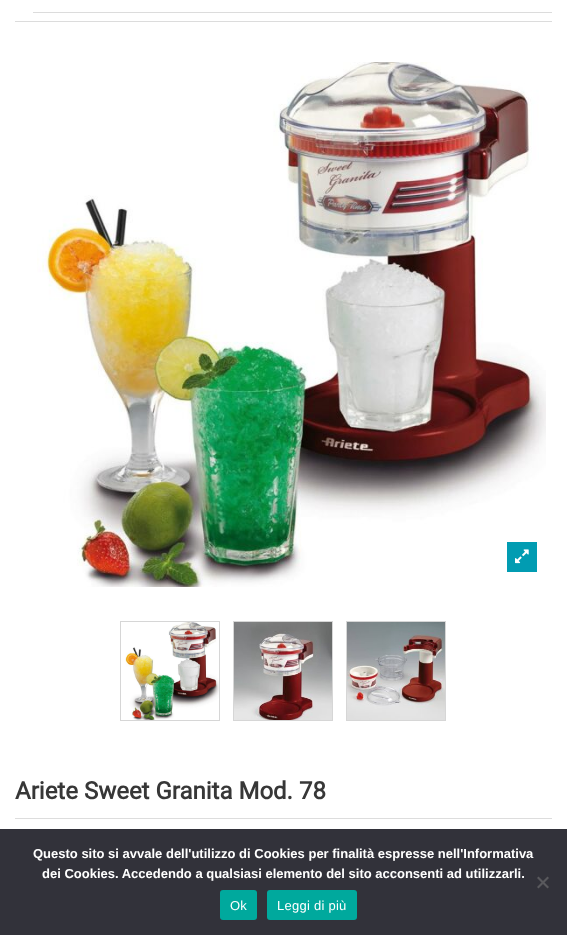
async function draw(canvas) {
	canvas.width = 567;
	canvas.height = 935;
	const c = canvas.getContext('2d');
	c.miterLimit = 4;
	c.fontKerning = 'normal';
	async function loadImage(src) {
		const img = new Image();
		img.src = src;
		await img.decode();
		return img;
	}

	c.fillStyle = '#fff';
	c.fillRect(0, 0, 567, 935);
	c.fillStyle = '#dcdcdc';
	c.fillRect(15, 21, 537, 1);
	c.fillRect(33, 12, 519, 1);
	c.drawImage(await loadImage('img1.png'), 37, 62, 509, 525);
	c.fillStyle = '#019cb2';
	c.fillRect(507, 542, 30, 30);
	c.drawImage(await loadImage('img2.png'), 515, 549, 14, 15);
	c.strokeStyle = '#d6d6d6';
	c.strokeRect(120.5, 621.5, 99, 99);
	c.drawImage(await loadImage('img3.png'), 125, 622, 94, 98);
	c.strokeRect(233.5, 621.5, 99, 99);
	c.drawImage(await loadImage('img4.png'), 234, 622, 98, 98);
	c.strokeRect(346.5, 621.5, 99, 99);
	c.drawImage(await loadImage('img5.png'), 347, 622, 98, 98);
	c.font = 'bold 24px Roboto';
	c.fillStyle = '#373737';
	c.fillText('Ariete Sweet Granita Mod. 78', 15, 799);
	c.fillStyle = '#ddd';
	c.fillRect(15, 818, 537, 1);
	c.fillStyle = '#32323a';
	c.fillRect(0, 829, 567, 106);
	c.font = 'bold 13px Liberation Sans';
	c.fillStyle = '#fff';
	c.fillText('Questo sito si avvale dell\'utilizzo di Cookies per finalità espresse nell\'Informativa', 33, 858);
	c.fillText('dei Cookies. Accedendo a qualsiasi elemento del sito acconsenti ad utilizzarli.', 42, 878);
	c.fillStyle = '#59595d';
	c.beginPath();
	c.moveTo(547.5, 876.5);
	c.lineTo(549, 878);
	c.lineTo(538.5, 888.5);
	c.lineTo(537, 887);
	c.closePath();
	c.fill();
	c.beginPath();
	c.moveTo(537, 878);
	c.lineTo(538.5, 876.5);
	c.lineTo(549, 887);
	c.lineTo(547.5, 888.5);
	c.closePath();
	c.fill();
	c.fillStyle = '#00a99d';
	c.beginPath();
	c.roundRect(220, 890, 37, 30, 3);
	c.fill();
	c.letterSpacing = '0.25px';
	c.font = '13px Liberation Sans';
	c.fillStyle = '#fff';
	c.fillText('Ok', 230, 910);
	c.fillStyle = '#00a99d';
	c.beginPath();
	c.roundRect(267, 890, 90, 30, 3);
	c.fill();
	c.fillStyle = '#fff';
	c.fillText('Leggi di più', 277, 910);
}

draw(document.querySelector('canvas'));
